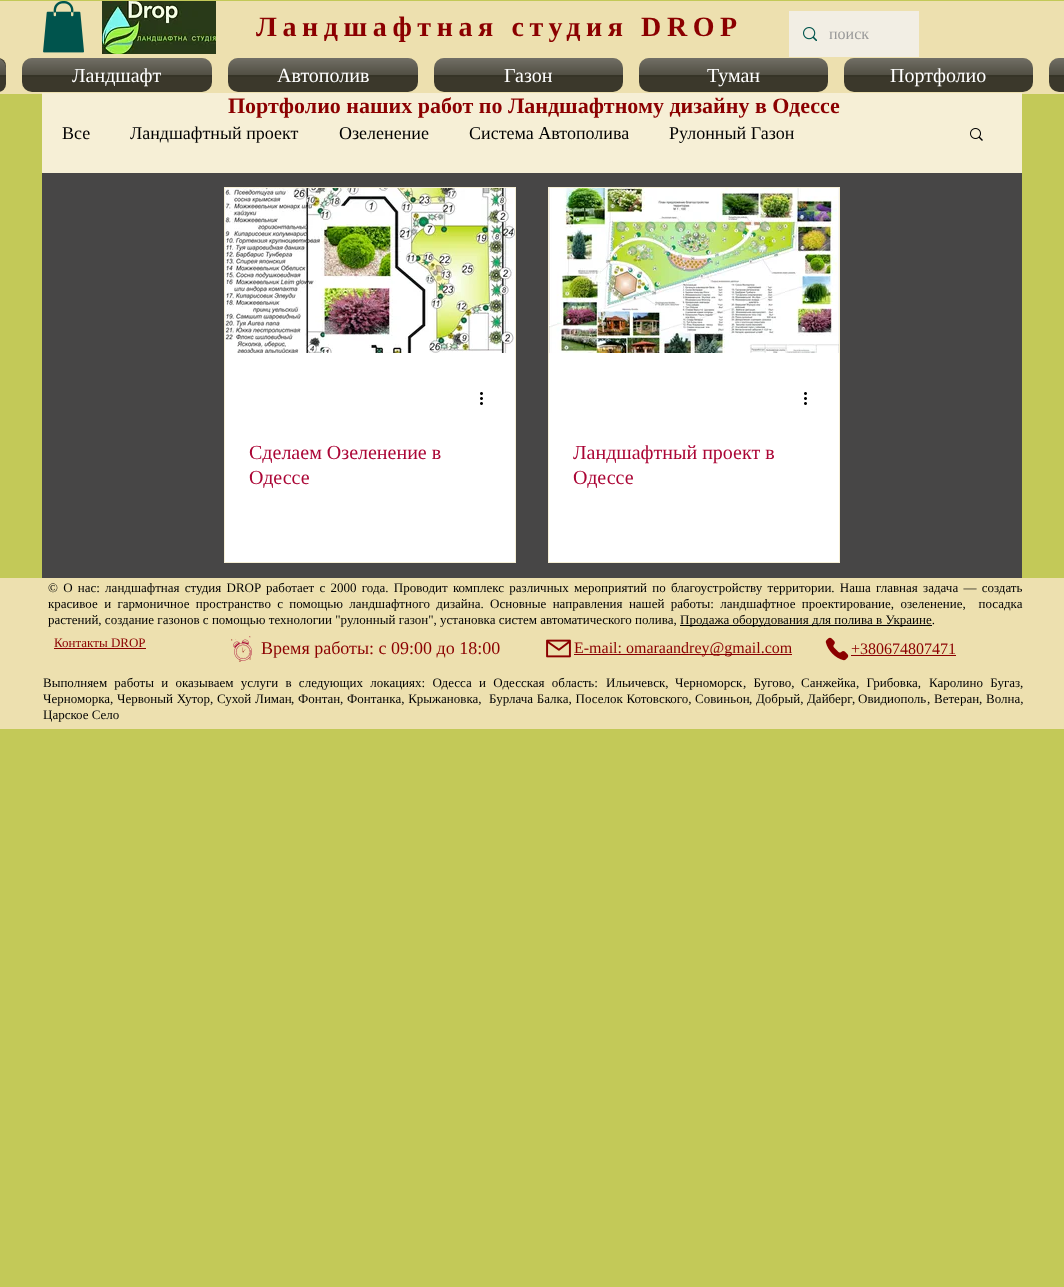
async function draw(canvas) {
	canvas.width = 1064;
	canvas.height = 1287;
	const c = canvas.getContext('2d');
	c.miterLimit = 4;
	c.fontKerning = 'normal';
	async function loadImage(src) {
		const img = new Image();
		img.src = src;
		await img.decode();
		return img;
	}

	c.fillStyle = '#c3c958';
	c.fillRect(0, 0, 1064, 1287);
	c.fillStyle = '#ede0af';
	c.fillRect(0, 1, 1064, 93);
	c.drawImage(await loadImage('img1.png'), 43, 1, 41, 52);
	c.drawImage(await loadImage('img2.png'), 102, 1, 114, 53);
	c.letterSpacing = '5.6px';
	c.font = 'bold 28px Liberation Serif';
	c.fillStyle = '#8b0000';
	c.fillText('Ландшафтная студия DROP', 256, 36);
	c.fillStyle = '#f2eee4';
	c.fillRect(789, 11, 130, 46);
	c.drawImage(await loadImage('img3.png'), 803, 27, 14, 14);
	c.letterSpacing = '0px';
	c.font = '16px Liberation Serif';
	c.fillStyle = '#999';
	c.fillText('поиск', 829, 39);
	c.fillStyle = '#3b382b';
	c.beginPath();
	c.roundRect(-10, 58, 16, 34, 10);
	c.fill();
	c.drawImage(await loadImage('img4.png'), 0, 59, 6, 18);
	c.beginPath();
	c.roundRect(22, 58, 190, 34, 10);
	c.fill();
	c.drawImage(await loadImage('img5.png'), 22, 58, 190, 19);
	c.font = '20px Liberation Serif';
	c.fillStyle = '#fff';
	c.fillText('Ландшафт', 72, 82);
	c.fillStyle = '#3b382b';
	c.beginPath();
	c.roundRect(228, 58, 190, 34, 10);
	c.fill();
	c.drawImage(await loadImage('img6.png'), 228, 58, 190, 19);
	c.fillStyle = '#fff';
	c.fillText('Автополив', 277, 82);
	c.fillStyle = '#3b382b';
	c.beginPath();
	c.roundRect(434, 58, 189, 34, 10);
	c.fill();
	c.drawImage(await loadImage('img7.png'), 434, 58, 189, 19);
	c.fillStyle = '#fff';
	c.fillText('Газон', 504, 82);
	c.fillStyle = '#3b382b';
	c.beginPath();
	c.roundRect(639, 58, 189, 34, 10);
	c.fill();
	c.drawImage(await loadImage('img8.png'), 639, 58, 189, 19);
	c.fillStyle = '#fff';
	c.fillText('Туман', 707, 82);
	c.fillStyle = '#3b382b';
	c.beginPath();
	c.roundRect(844, 58, 189, 34, 10);
	c.fill();
	c.drawImage(await loadImage('img8.png'), 844, 58, 189, 19);
	c.fillStyle = '#fff';
	c.fillText('Портфолио', 890, 82);
	c.fillStyle = '#3b382b';
	c.beginPath();
	c.roundRect(1049, 58, 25, 34, 10);
	c.fill();
	c.drawImage(await loadImage('img9.png'), 1049, 58, 15, 19);
	c.fillStyle = '#f6efd6';
	c.fillRect(42, 93, 980, 80);
	c.font = 'bold 22px Liberation Serif';
	c.fillStyle = '#8b0000';
	c.fillText('Портфолио наших работ по Ландшафтному дизайну в Одессе', 228, 113);
	c.fillStyle = '#474646';
	c.fillRect(42, 173, 980, 405);
	c.font = '18px Liberation Serif';
	c.fillStyle = '#000';
	for (const [text, x, y] of [
		['Все', 62, 139],
		['Ландшафтный проект', 130, 139],
		['Озеленение', 339, 139],
		['Система Автополива', 469, 139],
		['Рулонный Газон', 669, 139],
	]) {
		c.fillText(text, x, y);
	}
	c.drawImage(await loadImage('img10.png'), 970, 128, 13, 13);
	c.fillStyle = '#fff';
	c.fillRect(225, 353, 290, 209);
	c.strokeStyle = '#f6efd6';
	c.strokeRect(224.5, 187.5, 291, 375);
	c.drawImage(await loadImage('img11.png'), 225, 188, 290, 165);
	c.drawImage(await loadImage('img12.png'), 480, 392, 3, 13);
	c.font = '20px Liberation Serif';
	c.fillStyle = '#ab0535';
	c.fillText('Сделаем Озеленение в', 249, 459);
	c.fillText('Одессе', 249, 484);
	c.fillStyle = '#fff';
	c.fillRect(549, 353, 290, 209);
	c.strokeRect(548.5, 187.5, 291, 375);
	c.drawImage(await loadImage('img13.png'), 549, 188, 290, 165);
	c.drawImage(await loadImage('img12.png'), 804, 392, 3, 13);
	c.fillStyle = '#ab0535';
	c.fillText('Ландшафтный проект в', 573, 459);
	c.fillText('Одессе', 573, 484);
	c.fillStyle = '#ede0af';
	c.fillRect(0, 578, 1064, 151);
	c.wordSpacing = '2px';
	c.font = '13px Liberation Serif';
	c.fillStyle = '#000';
	c.fillText('© О нас: ландшафтная студия DROP работает с 2000 года. Проводит комплекс различных мероприятий по благоустройству территории. Наша главная задача — создать', 48, 592);
	c.wordSpacing = '3.1px';
	c.fillText('красивое и гармоничное пространство с помощью ландшафтного дизайна. Основные направления нашей работы: ландшафтное проектирование, озеленение,  посадка', 48, 608);
	c.wordSpacing = '0px';
	c.fillText('растений, создание газонов с помощью технологии "рулонный газон", установка систем автоматического полива,', 48, 624);
	c.fillRect(680, 625, 252, 1);
	c.fillText('Продажа оборудования для полива в Украине.', 680, 624);
	c.fillStyle = '#8b0000';
	c.fillText('Контакты DROP', 54, 647);
	c.fillRect(54, 648, 92, 1);
	c.drawImage(await loadImage('img14.png'), 231, 636, 21, 26);
	c.font = '18px Liberation Serif';
	c.fillText('Время работы: с 09:00 до 18:00', 261, 654);
	c.drawImage(await loadImage('img15.png'), 546, 639, 25, 19);
	c.fillRect(574, 654, 218, 1);
	c.font = '16px Liberation Serif';
	c.fillText('E-mail: omaraandrey@gmail.com', 574, 653);
	c.drawImage(await loadImage('img16.png'), 825, 637, 24, 24);
	c.fillText('+380674807471', 851, 654);
	c.fillRect(851, 655, 105, 1);
	c.wordSpacing = '4px';
	c.font = '13px Liberation Serif';
	c.fillStyle = '#000';
	c.fillText('Выполняем работы и оказываем услуги в следующих локациях: Одесса и Одесская область:', 43, 687);
	c.wordSpacing = '0px';
	c.fillText('Ильичевск,', 606, 687);
	c.fillText('Черноморск', 675, 687);
	c.wordSpacing = '4px';
	c.fillText(', Бугово,', 743, 687);
	c.wordSpacing = '0px';
	c.fillText('Санжейка', 801, 687);
	c.wordSpacing = '4px';
	c.fillText(', Грибовка,', 856, 687);
	c.fillText('Каролино Бугаз', 929, 687);
	c.wordSpacing = '0px';
	c.fillText(',', 1020, 687);
	c.wordSpacing = '0.5px';
	c.fillText('Черноморка, Червоный Хутор,', 43, 703);
	c.fillText('Сухой Лиман', 217, 703);
	c.wordSpacing = '0px';
	c.fillText(',', 291, 703);
	c.fillText('Фонтан', 298, 703);
	c.wordSpacing = '0.5px';
	c.fillText(', Фонтанка, Крыжановка,', 340, 703);
	c.fillText('Бурлача Балка, Поселок Котовского,', 489, 703);
	c.wordSpacing = '0px';
	c.fillText('Совиньон', 695, 703);
	c.wordSpacing = '0.5px';
	c.fillText(', Добрый,', 749, 703);
	c.wordSpacing = '0px';
	c.fillText('Дайберг', 807, 703);
	c.fillText('Овидиополь', 858, 703);
	c.wordSpacing = '0.5px';
	c.fillText(', Ветеран, Волна,', 927, 703);
	c.wordSpacing = '0px';
	c.fillText(',', 852, 703);
	c.fillText('Царское Село', 43, 719);
}

draw(document.querySelector('canvas'));
